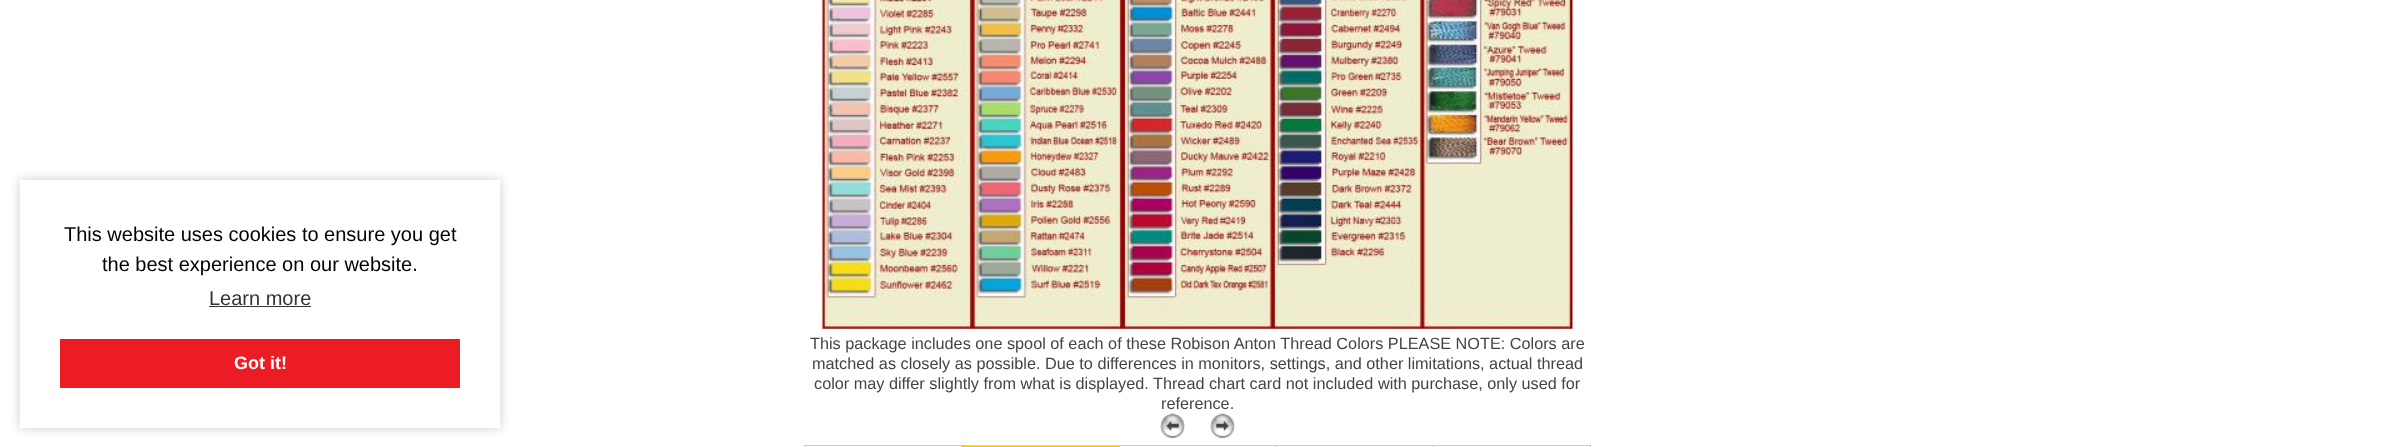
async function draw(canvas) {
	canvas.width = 2395;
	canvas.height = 447;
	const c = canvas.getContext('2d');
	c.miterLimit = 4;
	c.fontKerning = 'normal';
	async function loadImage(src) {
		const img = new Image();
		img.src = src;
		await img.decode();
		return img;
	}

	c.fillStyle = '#fff';
	c.fillRect(0, 0, 2395, 447);
	c.fillStyle = '#00000033';
	c.filter = 'blur(6px)';
	c.beginPath();
	c.rect(20, 180, 480, 248);
	c.fill();
	c.filter = 'none';
	c.fillStyle = '#fff';
	c.fillRect(20, 180, 480, 248);
	c.font = '20px Liberation Sans';
	c.fillStyle = '#000';
	c.fillText('This website uses cookies to ensure you get', 64, 241);
	c.fillText('the best experience on our website.', 102, 271);
	c.fillStyle = '#333';
	c.fillText('Learn more', 209, 305);
	c.fillRect(209, 306, 102, 1);
	c.fillStyle = '#ec1c24';
	c.fillRect(60, 339, 400, 49);
	c.font = 'bold 18px Liberation Sans';
	c.fillStyle = '#fff';
	c.fillText('Got it!', 234, 369);
	c.drawImage(await loadImage('img1.png'), 822, 0, 751, 329);
	c.font = '16.25px Liberation Sans';
	c.fillStyle = '#444';
	for (const [text, x, y] of [
		['This package includes one spool of each of these Robison Anton Thread Colors PLEASE NOTE: Colors are', 810, 349],
		['matched as closely as possible. Due to differences in monitors, settings, and other limitations, actual thread', 812, 369],
		['color may differ slightly from what is displayed. Thread chart card not included with purchase, only used for', 814, 389],
		['reference.', 1161, 409],
	]) {
		c.fillText(text, x, y);
	}
	c.drawImage(await loadImage('img2.png'), 1160, 413, 26, 26);
	c.drawImage(await loadImage('img3.png'), 1210, 413, 26, 26);
	for (const [x, y, w, h, color] of [
		[1433, 445, 158, 1, '#ccc'],
		[1433, 445, 1, 2, '#ccc'],
		[1275, 445, 159, 1, '#ccc'],
		[1275, 445, 1, 2, '#ccc'],
		[1119, 445, 157, 1, '#ccc'],
		[1119, 445, 1, 2, '#ccc'],
		[961, 445, 159, 1, '#ccc'],
		[961, 446, 158, 1, '#fc0'],
		[961, 445, 1, 2, '#ccc'],
		[804, 445, 159, 1, '#ccc'],
		[804, 445, 1, 2, '#ccc'],
		[1590, 445, 1, 2, '#ccc'],
	]) {
		c.fillStyle = color;
		c.fillRect(x, y, w, h);
	}
}

draw(document.querySelector('canvas'));
